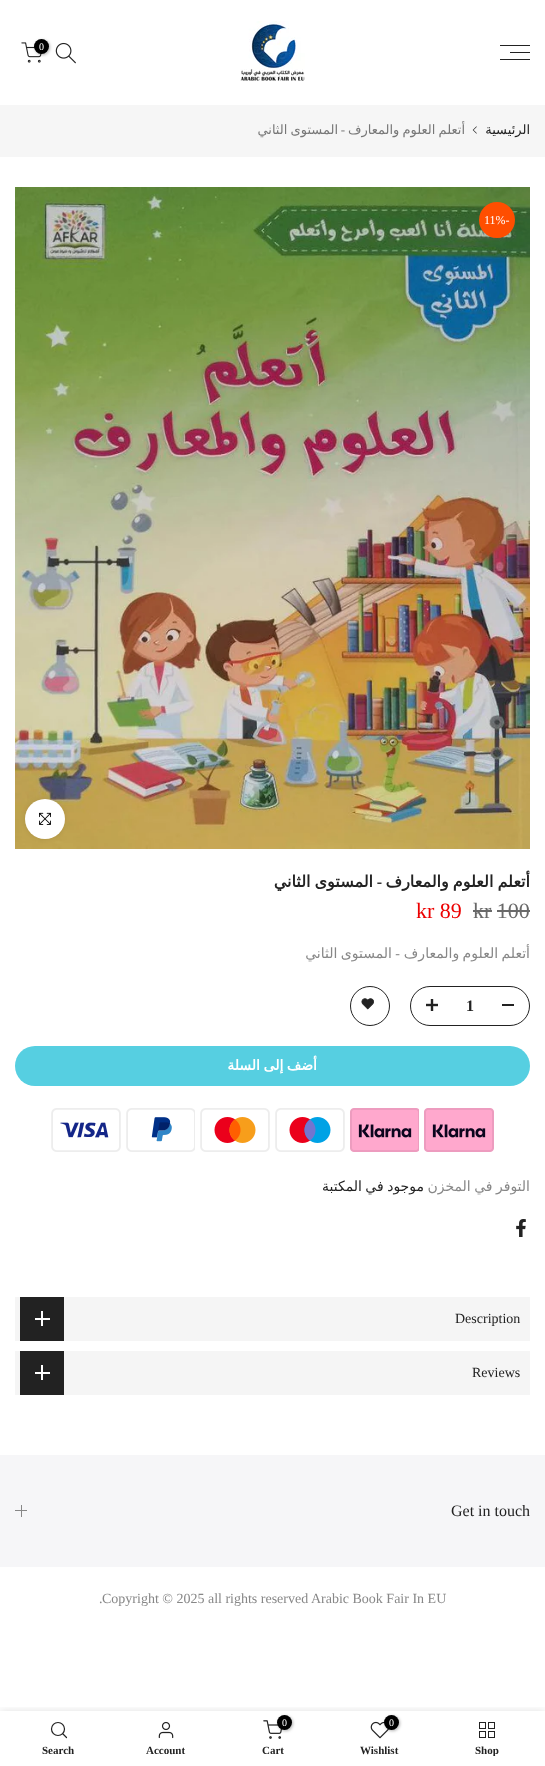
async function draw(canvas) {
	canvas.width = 545;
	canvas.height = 1766;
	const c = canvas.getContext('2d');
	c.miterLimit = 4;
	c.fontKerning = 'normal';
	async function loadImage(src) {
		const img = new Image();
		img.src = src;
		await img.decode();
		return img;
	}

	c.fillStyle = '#fff';
	c.fillRect(0, 0, 545, 1766);
	for (const [x, y, w, h, color] of [
		[500, 59, 30, 1, '#222'],
		[510, 52, 20, 1, '#222'],
		[500, 45, 30, 1, '#222'],
	]) {
		c.fillStyle = color;
		c.fillRect(x, y, w, h);
	}
	c.drawImage(await loadImage('img1.png'), 240, 21, 65, 60);
	c.drawImage(await loadImage('img2.png'), 55, 42, 21, 22);
	c.drawImage(await loadImage('img3.png'), 21, 42, 21, 21);
	c.fillStyle = '#0000004d';
	c.filter = 'blur(1.5px)';
	c.beginPath();
	c.roundRect(35, 40, 15, 15, 7.5);
	c.fill();
	c.filter = 'none';
	c.fillStyle = '#000';
	c.beginPath();
	c.arc(41.5, 46.5, 7.5, 0, 2 * Math.PI);
	c.fill();
	c.font = '10px Liberation Serif';
	c.fillStyle = '#fff';
	c.fillText('0', 39, 50);
	c.fillStyle = '#f6f6f6';
	c.fillRect(0, 105, 545, 52);
	c.direction = 'rtl';
	c.font = '13px DejaVu Sans';
	c.fillStyle = '#222';
	c.fillText('الرئيسية', 530, 134);
	c.drawImage(await loadImage('img4.png'), 472, 126, 5, 8);
	c.wordSpacing = '-1px';
	c.fillStyle = '#777';
	c.fillText('أتعلم العلوم والمعارف', 465, 134);
	c.wordSpacing = '0px';
	c.font = '13px Liberation Serif';
	c.fillText('-', 345, 134);
	c.wordSpacing = '-1px';
	c.font = '13px DejaVu Sans';
	c.fillText('المستوى الثاني', 338, 134);
	c.drawImage(await loadImage('img5.png'), 15, 187, 515, 662);
	c.fillStyle = '#ff4e00';
	c.beginPath();
	c.arc(497, 220, 18, 0, 2 * Math.PI);
	c.fill();
	c.wordSpacing = '0px';
	c.direction = 'ltr';
	c.font = '12px Liberation Serif';
	c.fillStyle = '#fff';
	c.fillText('11%-', 484, 224);
	c.fillStyle = '#00000017';
	c.filter = 'blur(2.5px)';
	c.beginPath();
	c.roundRect(25, 799, 40, 40, 20);
	c.fill();
	c.filter = 'none';
	c.fillStyle = '#fff';
	c.beginPath();
	c.arc(45, 819, 20, 0, 2 * Math.PI);
	c.fill();
	c.drawImage(await loadImage('img6.png'), 39, 812, 12, 13);
	c.wordSpacing = '-1px';
	c.direction = 'rtl';
	c.font = 'bold 16px DejaVu Sans';
	c.fillStyle = '#222';
	c.fillText('أتعلم العلوم والمعارف', 530, 887);
	c.wordSpacing = '0px';
	c.font = 'bold 16px Liberation Serif';
	c.fillText('-', 382, 887);
	c.wordSpacing = '-1px';
	c.font = 'bold 16px DejaVu Sans';
	c.fillText('المستوى الثاني', 373, 887);
	c.wordSpacing = '0px';
	c.direction = 'ltr';
	c.font = '22px Liberation Serif';
	c.fillStyle = '#696969';
	c.fillText('kr 100', 473, 918);
	c.fillRect(473, 910, 19, 2);
	c.fillRect(497, 910, 33, 2);
	c.fillStyle = '#ec0101';
	c.fillText('kr 89', 416, 918);
	c.wordSpacing = '-1px';
	c.direction = 'rtl';
	c.font = '14px DejaVu Sans';
	c.fillStyle = '#878787';
	c.fillText('أتعلم العلوم والمعارف', 530, 958);
	c.wordSpacing = '0px';
	c.font = '14px Liberation Serif';
	c.fillText('-', 400, 958);
	c.wordSpacing = '-1px';
	c.font = '14px DejaVu Sans';
	c.fillText('المستوى الثاني', 392, 958);
	c.beginPath();
	c.roundRect(410.5, 986.5, 119, 39, 19.5);
	c.strokeStyle = '#222';
	c.stroke();
	c.fillStyle = '#222';
	c.fillRect(502, 1004, 12, 2);
	c.wordSpacing = '0px';
	c.direction = 'ltr';
	c.font = 'bold 16px Liberation Serif';
	c.fillText('1', 466, 1011);
	c.drawImage(await loadImage('img7.png'), 426, 999, 12, 12);
	c.beginPath();
	c.arc(370, 1006, 19.5, 0, 2 * Math.PI);
	c.stroke();
	c.drawImage(await loadImage('img8.png'), 361, 998, 13, 12);
	c.fillStyle = '#56cfe1';
	c.beginPath();
	c.roundRect(15, 1046, 515, 40, 20);
	c.fill();
	c.wordSpacing = '-1px';
	c.direction = 'rtl';
	c.font = 'bold 14px DejaVu Sans';
	c.fillStyle = '#fff';
	c.fillText('أضف إلى السلة', 317, 1070);
	c.drawImage(await loadImage('img9.png'), 424, 1108, 70, 44);
	c.drawImage(await loadImage('img10.png'), 350, 1108, 69, 44);
	c.drawImage(await loadImage('img11.png'), 275, 1108, 70, 44);
	c.drawImage(await loadImage('img12.png'), 200, 1108, 70, 44);
	c.drawImage(await loadImage('img13.png'), 126, 1108, 69, 44);
	c.drawImage(await loadImage('img14.png'), 51, 1108, 70, 44);
	c.font = '14px DejaVu Sans';
	c.fillStyle = '#878787';
	c.fillText('التوفر في المخزن', 530, 1191);
	c.fillStyle = '#222';
	c.fillText('موجود في المكتبة', 424, 1191);
	c.drawImage(await loadImage('img15.png'), 516, 1219, 10, 18);
	c.fillStyle = '#f5f5f5';
	c.fillRect(15, 1297, 515, 44);
	c.wordSpacing = '0px';
	c.direction = 'ltr';
	c.font = '14px Liberation Serif';
	c.fillStyle = '#222';
	c.fillText('Description', 455, 1323);
	for (const [x, y, w, h, color] of [
		[20, 1297, 44, 44, '#222'],
		[41, 1311, 2, 15, '#fff'],
		[35, 1318, 15, 2, '#fff'],
		[15, 1351, 515, 44, '#f5f5f5'],
	]) {
		c.fillStyle = color;
		c.fillRect(x, y, w, h);
	}
	c.fillStyle = '#222';
	c.fillText('Reviews', 472, 1377);
	for (const [x, y, w, h, color] of [
		[20, 1351, 44, 44, '#222'],
		[41, 1365, 2, 15, '#fff'],
		[35, 1372, 15, 2, '#fff'],
		[0, 1455, 545, 112, '#f6f6f8'],
	]) {
		c.fillStyle = color;
		c.fillRect(x, y, w, h);
	}
	c.font = '16px Liberation Serif';
	c.fillStyle = '#222';
	c.fillText('Get in touch', 451, 1516);
	c.fillStyle = '#878787';
	c.fillRect(21, 1505, 1, 12);
	c.fillRect(15, 1510, 12, 1);
	c.font = '14px Liberation Serif';
	c.fillText('Copyright © 2025 all rights reserved Arabic Book Fair In EU', 102, 1603);
	c.fillText('.', 99, 1603);
	c.save();
	c.beginPath();
	c.rect(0, 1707, 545, 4);
	c.clip();
	c.fillStyle = '#0000001f';
	c.filter = 'blur(4.5px)';
	c.beginPath();
	c.rect(0, 1711, 545, 55);
	c.fill();
	c.filter = 'none';
	c.restore();
	c.drawImage(await loadImage('img16.png'), 479, 1722, 16, 16);
	c.save();
	c.beginPath();
	c.rect(443, 1745, 87, 11);
	c.clip();
	c.font = 'bold 11px Liberation Serif';
	c.fillStyle = '#222';
	c.fillText('Shop', 475, 1754);
	c.restore();
	c.drawImage(await loadImage('img17.png'), 370, 1721, 19, 18);
	c.fillStyle = '#0000004d';
	c.filter = 'blur(1.5px)';
	c.beginPath();
	c.roundRect(385, 1716, 15, 15, 7.5);
	c.fill();
	c.filter = 'none';
	c.fillStyle = '#000';
	c.beginPath();
	c.arc(391.5, 1722.5, 7.5, 0, 2 * Math.PI);
	c.fill();
	c.font = '10px Liberation Serif';
	c.fillStyle = '#fff';
	c.fillText('0', 389, 1726);
	c.font = 'bold 11px Liberation Serif';
	c.fillStyle = '#222';
	c.fillText('Wishlist', 360, 1754);
	c.drawImage(await loadImage('img18.png'), 263, 1720, 19, 19);
	c.fillStyle = '#0000004d';
	c.filter = 'blur(1.5px)';
	c.beginPath();
	c.roundRect(278, 1716, 15, 15, 7.5);
	c.fill();
	c.filter = 'none';
	c.fillStyle = '#000';
	c.beginPath();
	c.arc(284.5, 1722.5, 7.5, 0, 2 * Math.PI);
	c.fill();
	c.font = '10px Liberation Serif';
	c.fillStyle = '#fff';
	c.fillText('0', 282, 1726);
	c.font = 'bold 11px Liberation Serif';
	c.fillStyle = '#222';
	c.fillText('Cart', 262, 1754);
	c.drawImage(await loadImage('img19.png'), 158, 1721, 16, 18);
	c.fillText('Account', 146, 1754);
	c.beginPath();
	c.arc(58, 1729, 6.5, 0, 2 * Math.PI);
	c.lineWidth = 1.2;
	c.stroke();
	c.beginPath();
	c.moveTo(66.5, 1737.5);
	c.lineTo(63, 1734);
	c.lineCap = 'round';
	c.lineJoin = 'round';
	c.stroke();
	c.fillText('Search', 42, 1754);
}

draw(document.querySelector('canvas'));
